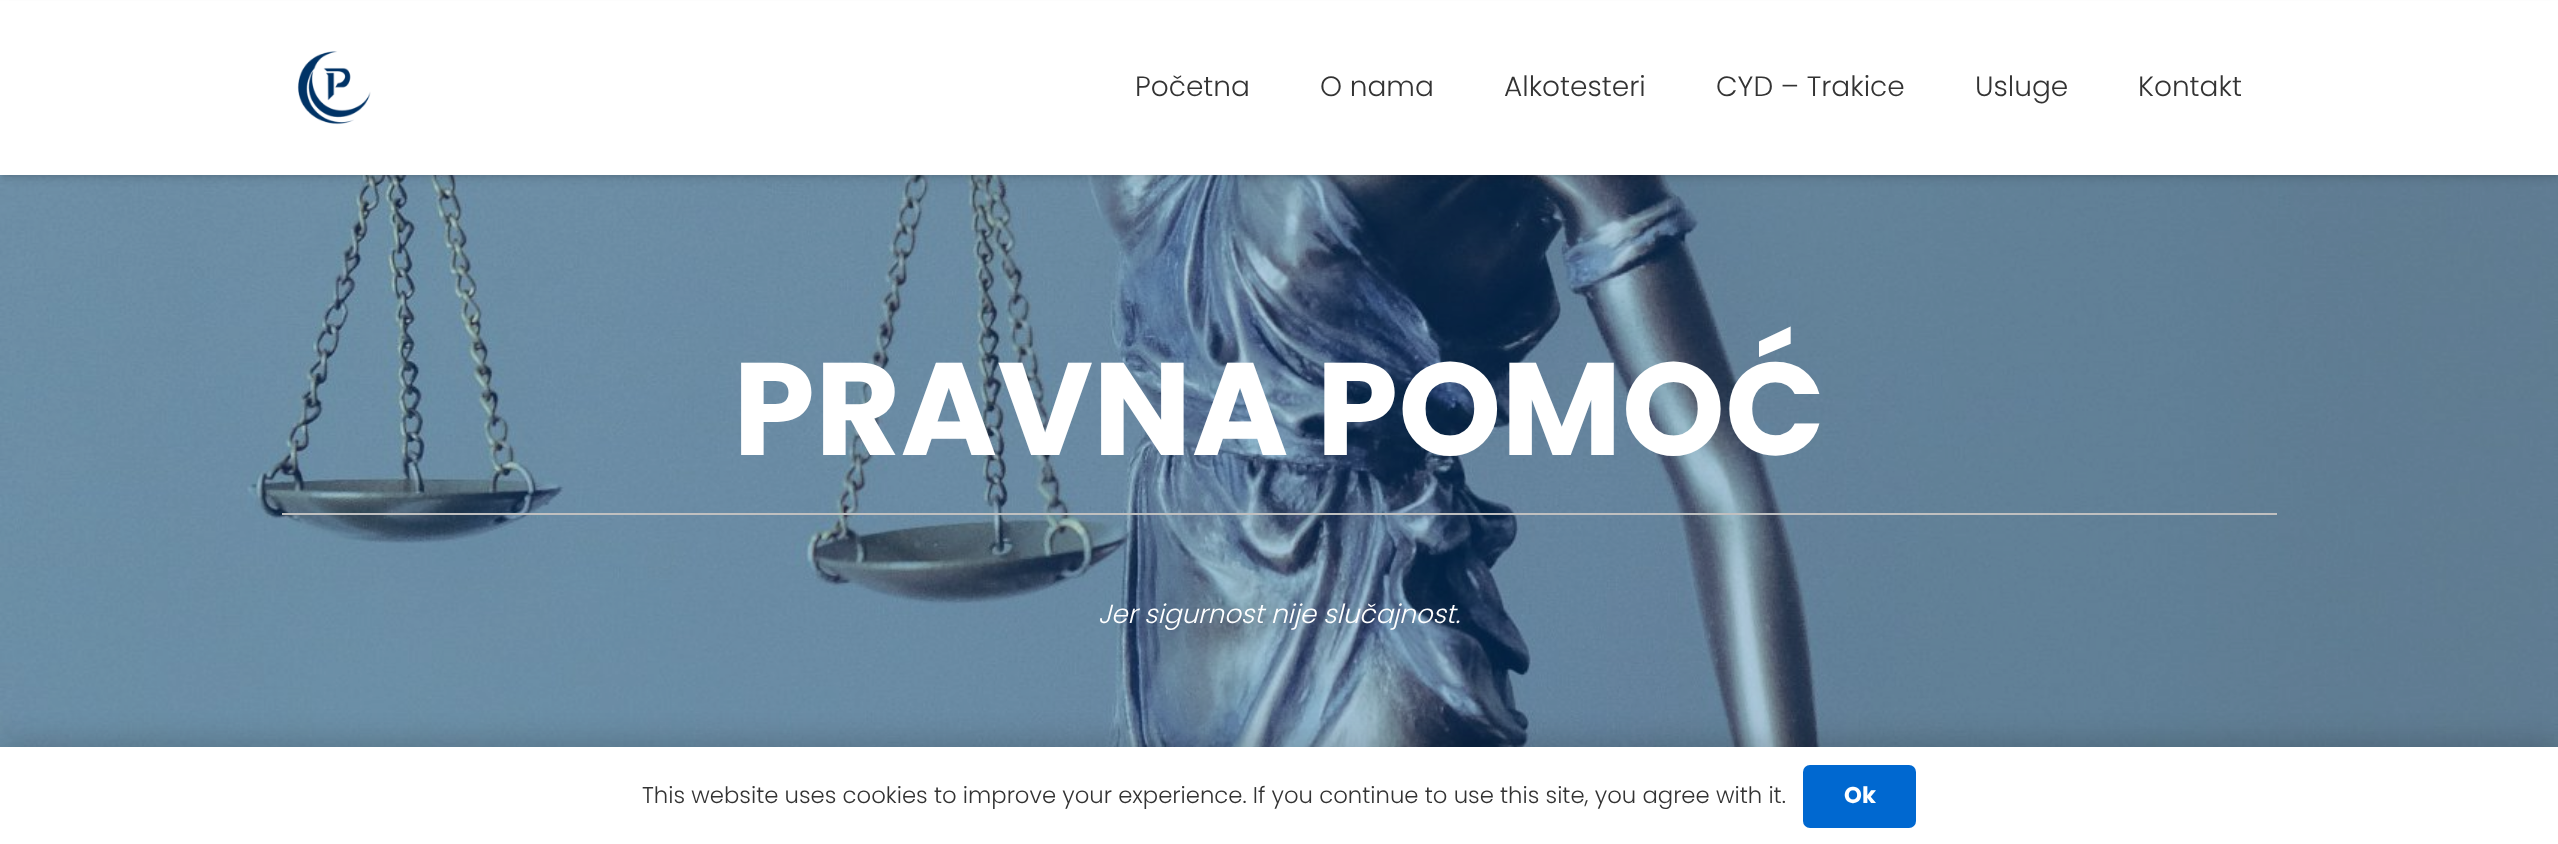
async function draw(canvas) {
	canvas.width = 2558;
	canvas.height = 844;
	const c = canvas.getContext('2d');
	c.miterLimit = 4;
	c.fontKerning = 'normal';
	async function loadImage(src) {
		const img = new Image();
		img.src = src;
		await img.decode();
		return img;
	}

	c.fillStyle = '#fff';
	c.fillRect(0, 0, 2558, 844);
	c.drawImage(await loadImage('img2.png'), 0, 175, 2558, 572);
	c.fillStyle = '#0000000d';
	c.filter = 'blur(1px)';
	c.beginPath();
	c.rect(2, 5, 2555, 172);
	c.fill();
	c.filter = 'none';
	c.fillStyle = '#0000001a';
	c.filter = 'blur(4.5px)';
	c.beginPath();
	c.rect(2, 7, 2555, 172);
	c.fill();
	c.filter = 'none';
	c.fillStyle = '#fff';
	c.fillRect(0, 1, 2558, 174);
	c.drawImage(await loadImage('img1.png'), 297, 51, 74, 74);
	c.font = '300 28px Poppins';
	c.fillStyle = '#333';
	for (const [text, x, y] of [
		['Početna', 1135, 96],
		['O nama', 1320, 96],
		['Alkotesteri', 1504, 96],
		['CYD – Trakice', 1716, 96],
		['Usluge', 1975, 96],
		['Kontakt', 2138, 96],
	]) {
		c.fillText(text, x, y);
	}
	c.font = 'bold 131.25px Poppins';
	c.fillStyle = '#fff';
	c.fillText('PRAVNA POMOĆ', 733, 455);
	c.fillStyle = '#c0c0c0';
	c.fillRect(282, 513, 1995, 2);
	c.font = 'italic 300 26.25px Poppins';
	c.fillStyle = '#fff';
	c.fillText('Jer sigurnost nije slučajnost.', 1098, 623);
	c.fillStyle = '#00000026';
	c.filter = 'blur(13px)';
	c.beginPath();
	c.rect(0, 739, 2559, 98);
	c.fill();
	c.filter = 'none';
	c.fillStyle = '#fff';
	c.fillRect(0, 747, 2558, 97);
	c.font = '300 22.75px Poppins';
	c.fillStyle = '#333';
	c.fillText('This website uses cookies to improve your experience. If you continue to use this site, you agree with it.', 642, 803);
	c.fillStyle = '#0068d0';
	c.beginPath();
	c.roundRect(1803, 765, 113, 63, 7);
	c.fill();
	c.font = 'bold 22.75px Poppins';
	c.fillStyle = '#fff';
	c.fillText('Ok', 1844, 803);
}

draw(document.querySelector('canvas'));
